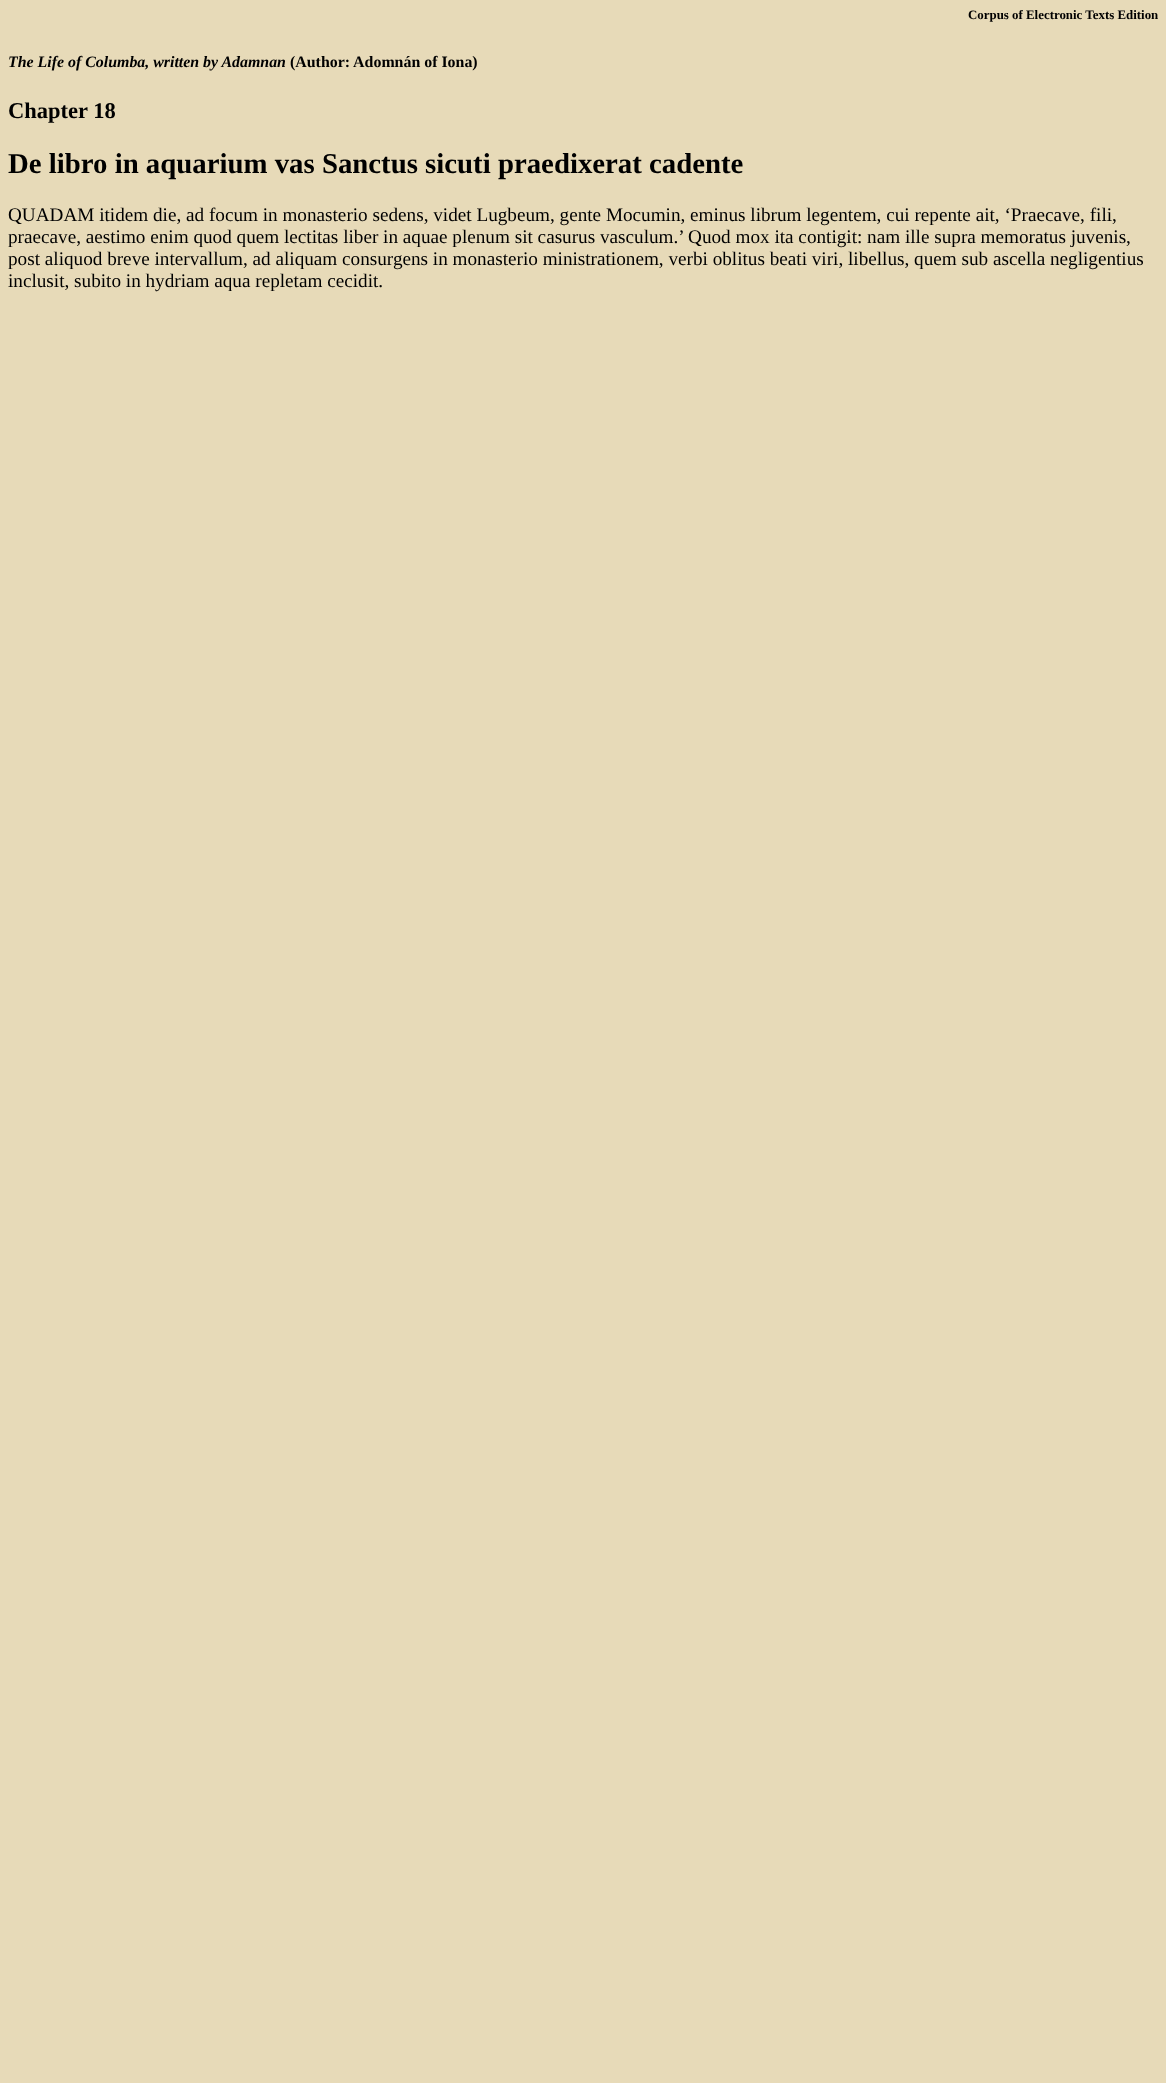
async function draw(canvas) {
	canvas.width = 1166;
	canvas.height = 2083;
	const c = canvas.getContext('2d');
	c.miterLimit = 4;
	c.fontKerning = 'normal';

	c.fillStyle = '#e7dab8';
	c.fillRect(0, 0, 1166, 2083);
	c.font = 'bold 12.9px Liberation Serif';
	c.fillStyle = '#000';
	c.fillText('Corpus of Electronic Texts Edition', 968, 19);
	c.font = 'italic bold 15.9px Liberation Serif';
	c.fillText('The Life of Columba, written by Adamnan', 8, 67);
	c.font = 'bold 15.9px Liberation Serif';
	c.fillText('(Author: Adomnán of Iona)', 290, 67);
	c.font = 'bold 22.5px Liberation Serif';
	c.fillText('Chapter 18', 8, 118);
	c.font = 'bold 28.8px Liberation Serif';
	c.fillText('De libro in aquarium vas Sanctus sicuti praedixerat cadente', 8, 173);
	c.font = '19.2px Liberation Serif';
	for (const [text, x, y] of [
		['QUADAM itidem die, ad focum in monasterio sedens, videt Lugbeum, gente Mocumin, eminus librum legentem, cui repente ait, ‘Praecave, fili,', 8, 221],
		['praecave, aestimo enim quod quem lectitas liber in aquae plenum sit casurus vasculum.’ Quod mox ita contigit: nam ille supra memoratus juvenis,', 8, 243],
		['post aliquod breve intervallum, ad aliquam consurgens in monasterio ministrationem, verbi oblitus beati viri, libellus, quem sub ascella negligentius', 8, 265],
		['inclusit, subito in hydriam aqua repletam cecidit.', 8, 287],
	]) {
		c.fillText(text, x, y);
	}
}

draw(document.querySelector('canvas'));
